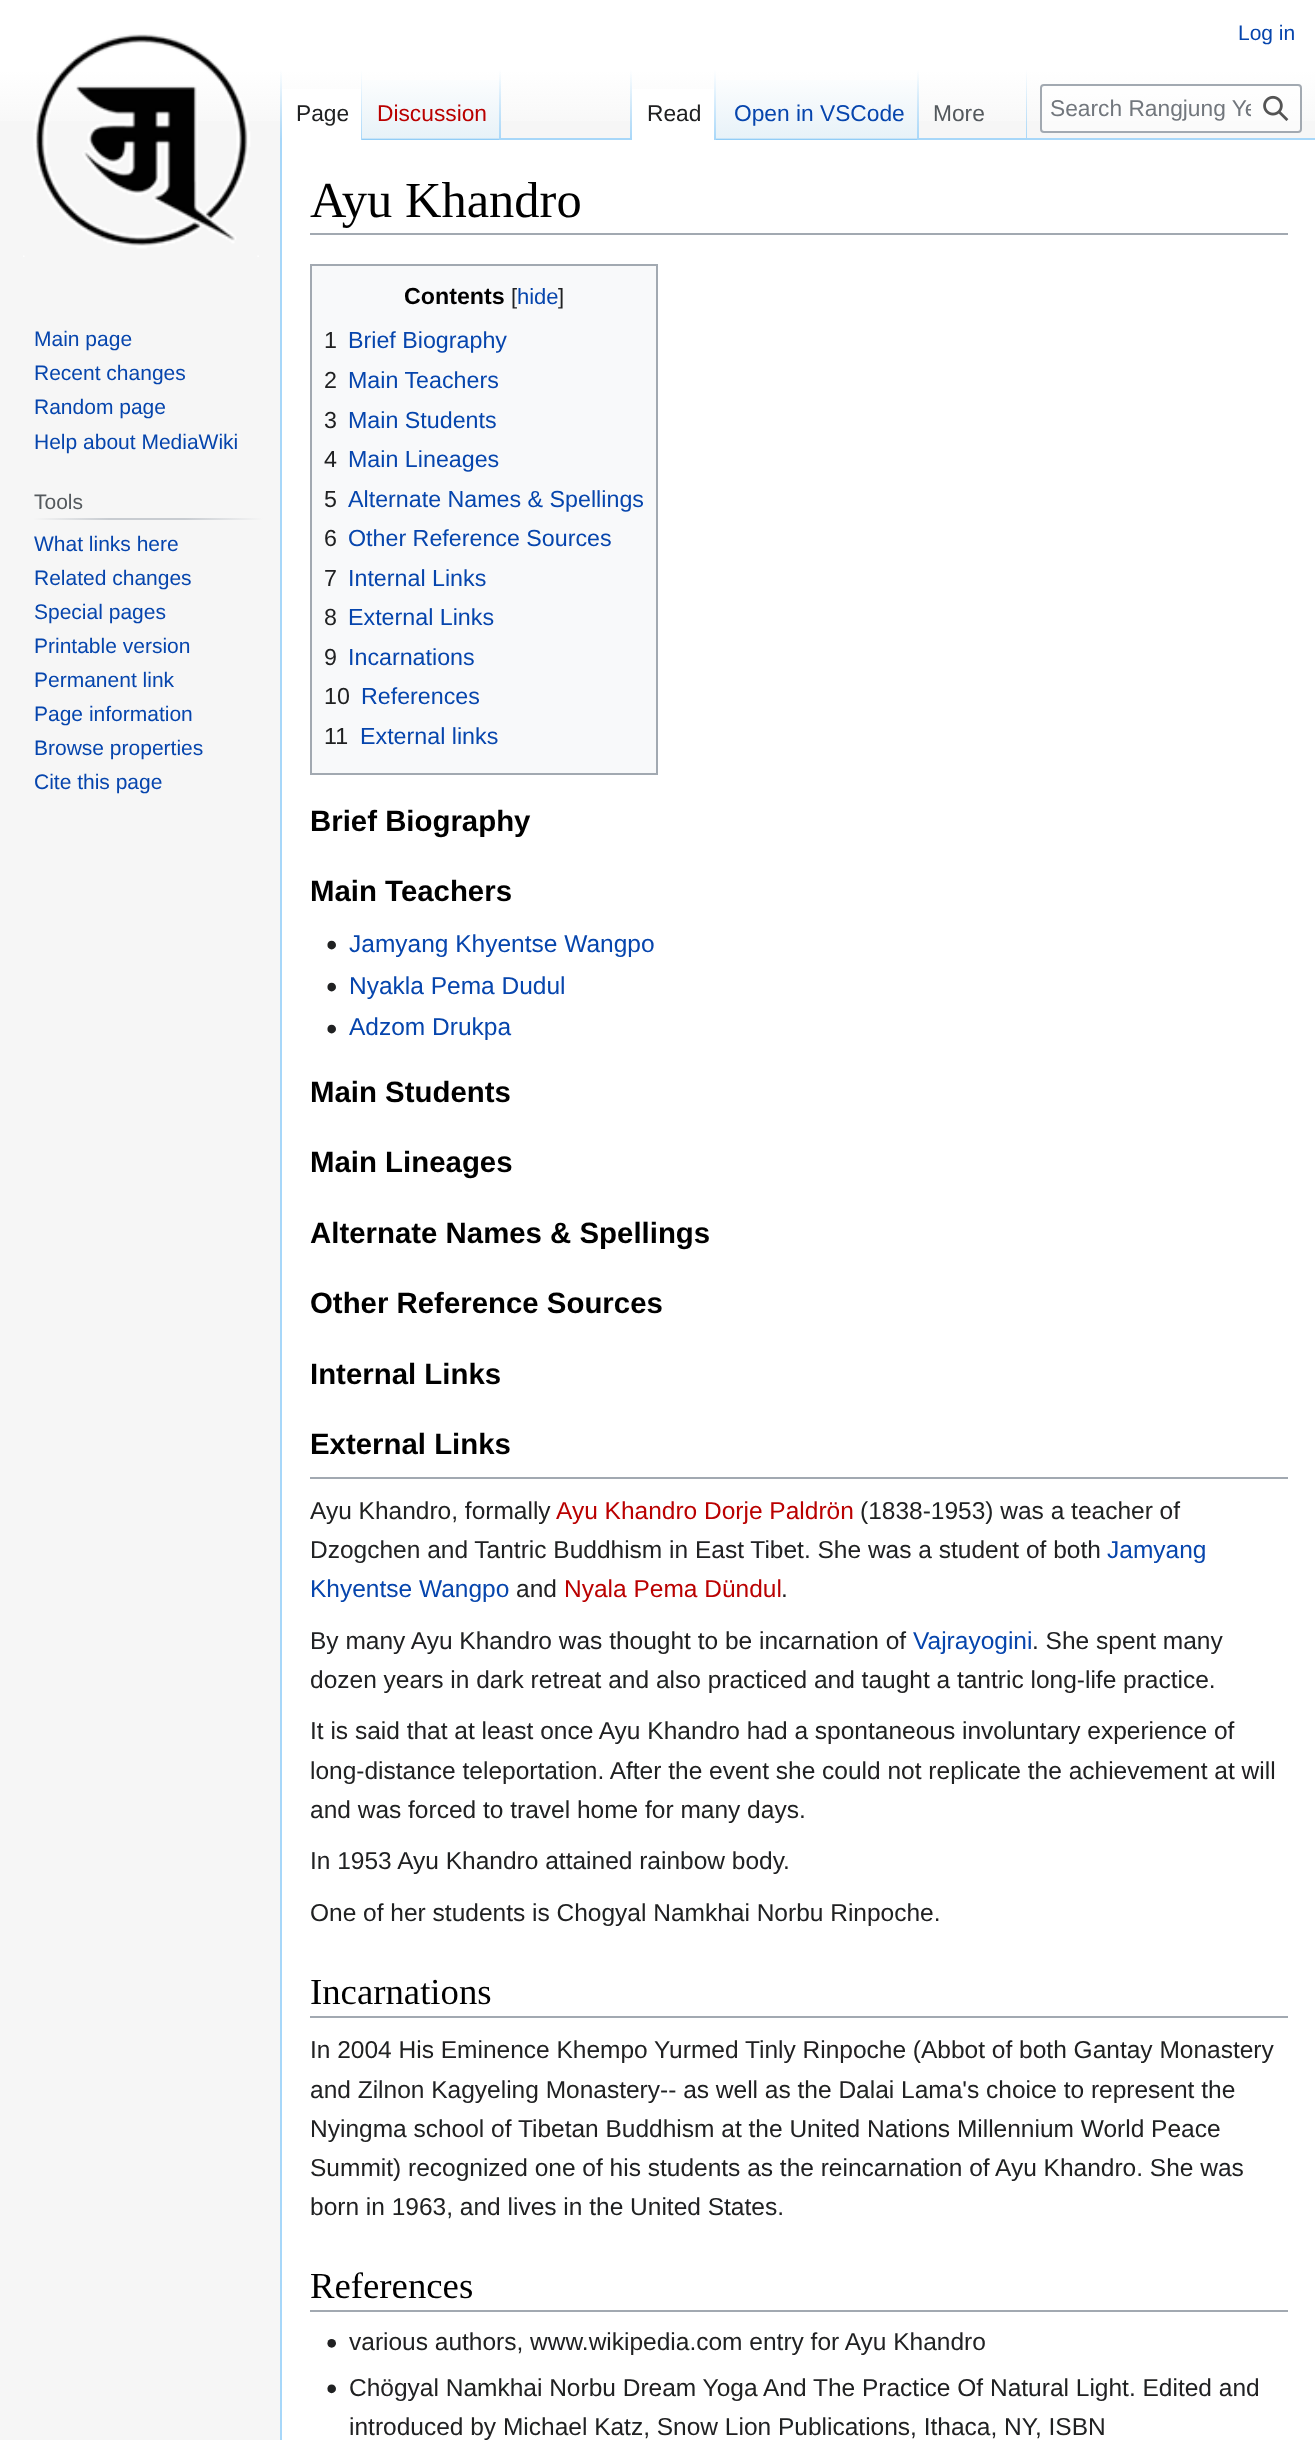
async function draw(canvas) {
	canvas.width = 1315;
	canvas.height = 2440;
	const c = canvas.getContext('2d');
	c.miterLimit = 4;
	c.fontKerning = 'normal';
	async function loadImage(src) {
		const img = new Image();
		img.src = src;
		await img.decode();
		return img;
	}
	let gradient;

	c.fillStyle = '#f6f6f6';
	c.fillRect(0, 0, 1315, 2440);
	gradient = c.createLinearGradient(658, 0, 658, 140);
	gradient.addColorStop(0.5, '#fff');
	gradient.addColorStop(1, '#f6f6f6');
	c.fillStyle = gradient;
	c.fillRect(0, 0, 1315, 121);
	c.font = '21px Liberation Sans';
	c.fillStyle = '#0645ad';
	c.fillText('Log in', 1238, 40);
	c.fillStyle = '#a7d7f9';
	c.fillRect(280, 138, 2, 2302);
	gradient = c.createLinearGradient(281, 70, 281, 140);
	gradient.addColorStop(0, '#a7d7f900');
	gradient.addColorStop(1, '#a7d7f9');
	c.fillStyle = gradient;
	c.fillRect(280, 70, 2, 70);
	c.fillStyle = '#fff';
	c.fillRect(282, 89, 79, 51);
	gradient = c.createLinearGradient(361, 70, 361, 140);
	gradient.addColorStop(0, '#fff');
	gradient.addColorStop(1, '#a7d7f9');
	c.fillStyle = gradient;
	c.fillRect(361, 70, 1, 70);
	c.font = '22.75px Liberation Sans';
	c.fillStyle = '#202122';
	c.fillText('Page', 296, 121);
	gradient = c.createLinearGradient(431, 140, 431, 70);
	gradient.addColorStop(0, '#77c1f6');
	gradient.addColorStop(0.03, '#e8f2f8');
	gradient.addColorStop(1, '#fff');
	c.fillStyle = gradient;
	c.fillRect(362, 80, 139, 60);
	gradient = c.createLinearGradient(500, 70, 500, 140);
	gradient.addColorStop(0, '#a7d7f900');
	gradient.addColorStop(1, '#a7d7f9');
	c.fillStyle = gradient;
	c.fillRect(499, 70, 2, 70);
	c.fillStyle = '#ba0000';
	c.fillText('Discussion', 377, 121);
	c.fillStyle = '#a7d7f9';
	c.fillRect(501, 138, 814, 2);
	gradient = c.createLinearGradient(631, 70, 631, 140);
	gradient.addColorStop(0, '#a7d7f900');
	gradient.addColorStop(1, '#a7d7f9');
	c.fillStyle = gradient;
	c.fillRect(630, 70, 2, 70);
	c.fillStyle = '#fff';
	c.fillRect(632, 89, 82, 51);
	gradient = c.createLinearGradient(715, 70, 715, 140);
	gradient.addColorStop(0, '#fff');
	gradient.addColorStop(1, '#a7d7f9');
	c.fillStyle = gradient;
	c.fillRect(714, 70, 2, 70);
	c.fillStyle = '#202122';
	c.fillText('Read', 647, 121);
	gradient = c.createLinearGradient(718, 140, 718, 70);
	gradient.addColorStop(0, '#77c1f6');
	gradient.addColorStop(0.03, '#e8f2f8');
	gradient.addColorStop(1, '#fff');
	c.fillStyle = gradient;
	c.fillRect(716, 80, 4, 60);
	gradient = c.createLinearGradient(819, 140, 819, 70);
	gradient.addColorStop(0, '#77c1f6');
	gradient.addColorStop(0.03, '#e8f2f8');
	gradient.addColorStop(1, '#fff');
	c.fillStyle = gradient;
	c.fillRect(720, 80, 199, 60);
	gradient = c.createLinearGradient(918, 70, 918, 140);
	gradient.addColorStop(0, '#a7d7f900');
	gradient.addColorStop(1, '#a7d7f9');
	c.fillStyle = gradient;
	c.fillRect(917, 70, 2, 70);
	c.fillStyle = '#0645ad';
	c.fillText('Open in VSCode', 734, 121);
	gradient = c.createLinearGradient(1026, 70, 1026, 140);
	gradient.addColorStop(0, '#a7d7f900');
	gradient.addColorStop(1, '#a7d7f9');
	c.fillStyle = gradient;
	c.fillRect(1026, 70, 1, 70);
	c.fillStyle = '#54595d';
	c.fillText('More', 933, 121);
	c.fillStyle = '#ffffff80';
	c.beginPath();
	c.roundRect(1041, 85, 260, 47, 3);
	c.fill();
	c.strokeStyle = '#a2a9b1';
	c.lineWidth = 2;
	c.stroke();
	c.save();
	c.beginPath();
	c.rect(1050, 96, 201, 27);
	c.clip();
	c.fillStyle = '#72777d';
	c.fillText('Search Rangjung Ye', 1050, 116);
	c.restore();
	c.drawImage(await loadImage('img1.png'), 1263, 95, 26, 26);
	c.drawImage(await loadImage('img2.png'), 23, 34, 236, 223);
	c.font = '21px Liberation Sans';
	c.fillStyle = '#0645ad';
	for (const [text, x, y] of [
		['Main page', 34, 346],
		['Recent changes', 34, 380],
		['Random page', 34, 414],
		['Help about MediaWiki', 34, 449],
	]) {
		c.fillText(text, x, y);
	}
	gradient = c.createLinearGradient(33, 519, 263, 519);
	gradient.addColorStop(0, '#f6f6f6');
	gradient.addColorStop(0.33, '#c8ccd1');
	gradient.addColorStop(0.66, '#c8ccd1');
	gradient.addColorStop(1, '#f6f6f6');
	c.fillStyle = gradient;
	c.fillRect(33, 518, 230, 2);
	c.fillStyle = '#54595d';
	c.fillText('Tools', 34, 509);
	c.fillStyle = '#0645ad';
	for (const [text, x, y] of [
		['What links here', 34, 551],
		['Related changes', 34, 585],
		['Special pages', 34, 619],
		['Printable version', 34, 653],
		['Permanent link', 34, 687],
		['Page information', 34, 721],
		['Browse properties', 34, 755],
		['Cite this page', 34, 789],
	]) {
		c.fillText(text, x, y);
	}
	c.fillStyle = '#fff';
	c.fillRect(282, 140, 1033, 2300);
	c.fillStyle = '#a2a9b1';
	c.fillRect(310, 233, 978, 2);
	c.font = '50.5px Liberation Serif';
	c.fillStyle = '#000';
	c.fillText('Ayu Khandro', 310, 217);
	c.fillStyle = '#f8f9fa';
	c.beginPath();
	c.rect(311, 265, 346, 509);
	c.fill();
	c.stroke();
	c.font = 'bold 23.25px Liberation Sans';
	c.fillStyle = '#000';
	c.fillText('Contents', 404, 304);
	c.font = '22px Liberation Sans';
	c.fillStyle = '#202122';
	c.fillText('[', 511, 304);
	c.fillStyle = '#0645ad';
	c.fillText('hide', 517, 304);
	c.fillStyle = '#202122';
	c.fillText(']', 558, 304);
	c.font = '23.25px Liberation Sans';
	c.fillText('1', 324, 348);
	c.fillStyle = '#0645ad';
	c.fillText('Brief Biography', 348, 348);
	c.fillStyle = '#202122';
	c.fillText('2', 324, 388);
	c.fillStyle = '#0645ad';
	c.fillText('Main Teachers', 348, 388);
	c.fillStyle = '#202122';
	c.fillText('3', 324, 428);
	c.fillStyle = '#0645ad';
	c.fillText('Main Students', 348, 428);
	c.fillStyle = '#202122';
	c.fillText('4', 324, 467);
	c.fillStyle = '#0645ad';
	c.fillText('Main Lineages', 348, 467);
	c.fillStyle = '#202122';
	c.fillText('5', 324, 507);
	c.fillStyle = '#0645ad';
	c.fillText('Alternate Names & Spellings', 348, 507);
	c.fillStyle = '#202122';
	c.fillText('6', 324, 546);
	c.fillStyle = '#0645ad';
	c.fillText('Other Reference Sources', 348, 546);
	c.fillStyle = '#202122';
	c.fillText('7', 324, 586);
	c.fillStyle = '#0645ad';
	c.fillText('Internal Links', 348, 586);
	c.fillStyle = '#202122';
	c.fillText('8', 324, 625);
	c.fillStyle = '#0645ad';
	c.fillText('External Links', 348, 625);
	c.fillStyle = '#202122';
	c.fillText('9', 324, 665);
	c.fillStyle = '#0645ad';
	c.fillText('Incarnations', 348, 665);
	c.fillStyle = '#202122';
	c.fillText('10', 324, 704);
	c.fillStyle = '#0645ad';
	c.fillText('References', 361, 704);
	c.fillStyle = '#202122';
	c.fillText('11', 324, 744);
	c.fillStyle = '#0645ad';
	c.fillText('External links', 360, 744);
	c.font = 'bold 29.4px Liberation Sans';
	c.fillStyle = '#000';
	c.fillText('Brief Biography', 310, 831);
	c.fillText('Main Teachers', 310, 901);
	c.drawImage(await loadImage('img3.png'), 327, 940, 9, 10);
	c.font = '24.5px Liberation Sans';
	c.fillStyle = '#0645ad';
	c.fillText('Jamyang Khyentse Wangpo', 349, 952);
	c.drawImage(await loadImage('img3.png'), 327, 982, 9, 10);
	c.fillText('Nyakla Pema Dudul', 349, 994);
	c.drawImage(await loadImage('img3.png'), 327, 1024, 9, 10);
	c.fillText('Adzom Drukpa', 349, 1035);
	c.font = 'bold 29.4px Liberation Sans';
	c.fillStyle = '#000';
	for (const [text, x, y] of [
		['Main Students', 310, 1102],
		['Main Lineages', 310, 1172],
		['Alternate Names & Spellings', 310, 1243],
		['Other Reference Sources', 310, 1313],
		['Internal Links', 310, 1384],
		['External Links', 310, 1454],
	]) {
		c.fillText(text, x, y);
	}
	c.fillStyle = '#a2a9b1';
	c.fillRect(310, 1477, 978, 2);
	c.font = '24.5px Liberation Sans';
	c.fillStyle = '#202122';
	c.fillText('Ayu Khandro, formally', 310, 1519);
	c.fillStyle = '#ba0000';
	c.fillText('Ayu Khandro Dorje Paldrön', 556, 1519);
	c.fillStyle = '#202122';
	c.fillText('(1838-1953) was a teacher of', 860, 1519);
	c.fillText('Dzogchen and Tantric Buddhism in East Tibet. She was a student of both', 310, 1558);
	c.fillStyle = '#0645ad';
	c.fillText('Jamyang', 1107, 1558);
	c.fillText('Khyentse Wangpo', 310, 1597);
	c.fillStyle = '#202122';
	c.fillText('and', 516, 1597);
	c.fillStyle = '#ba0000';
	c.fillText('Nyala Pema Dündul', 564, 1597);
	c.fillStyle = '#202122';
	c.fillText('.', 781, 1597);
	c.fillText('By many Ayu Khandro was thought to be incarnation of', 310, 1649);
	c.fillStyle = '#0645ad';
	c.fillText('Vajrayogini', 913, 1649);
	c.fillStyle = '#202122';
	for (const [text, x, y] of [
		['. She spent many', 1032, 1649],
		['dozen years in dark retreat and also practiced and taught a tantric long-life practice.', 310, 1688],
		['It is said that at least once Ayu Khandro had a spontaneous involuntary experience of', 310, 1739],
		['long-distance teleportation. After the event she could not replicate the achievement at will', 310, 1779],
		['and was forced to travel home for many days.', 310, 1818],
		['In 1953 Ayu Khandro attained rainbow body.', 310, 1869],
		['One of her students is Chogyal Namkhai Norbu Rinpoche.', 310, 1921],
	]) {
		c.fillText(text, x, y);
	}
	c.fillStyle = '#a2a9b1';
	c.fillRect(310, 2016, 978, 2);
	c.font = '36.75px Liberation Serif';
	c.fillStyle = '#000';
	c.fillText('Incarnations', 310, 2004);
	c.font = '24.5px Liberation Sans';
	c.fillStyle = '#202122';
	for (const [text, x, y] of [
		['In 2004 His Eminence Khempo Yurmed Tinly Rinpoche (Abbot of both Gantay Monastery', 310, 2058],
		['and Zilnon Kagyeling Monastery-- as well as the Dalai Lama\'s choice to represent the', 310, 2098],
		['Nyingma school of Tibetan Buddhism at the United Nations Millennium World Peace', 310, 2137],
		['Summit) recognized one of his students as the reincarnation of Ayu Khandro. She was', 310, 2176],
		['born in 1963, and lives in the United States.', 310, 2215],
	]) {
		c.fillText(text, x, y);
	}
	c.fillStyle = '#a2a9b1';
	c.fillRect(310, 2310, 978, 2);
	c.font = '36.75px Liberation Serif';
	c.fillStyle = '#000';
	c.fillText('References', 310, 2298);
	c.drawImage(await loadImage('img4.png'), 327, 2339, 9, 9);
	c.font = '24.5px Liberation Sans';
	c.fillStyle = '#202122';
	c.fillText('various authors, www.wikipedia.com entry for Ayu Khandro', 349, 2350);
	c.drawImage(await loadImage('img5.png'), 327, 2384, 9, 10);
	c.fillText('Chögyal Namkhai Norbu Dream Yoga And The Practice Of Natural Light. Edited and', 349, 2396);
	c.fillText('introduced by Michael Katz, Snow Lion Publications, Ithaca, NY, ISBN', 349, 2435);
}

draw(document.querySelector('canvas'));
